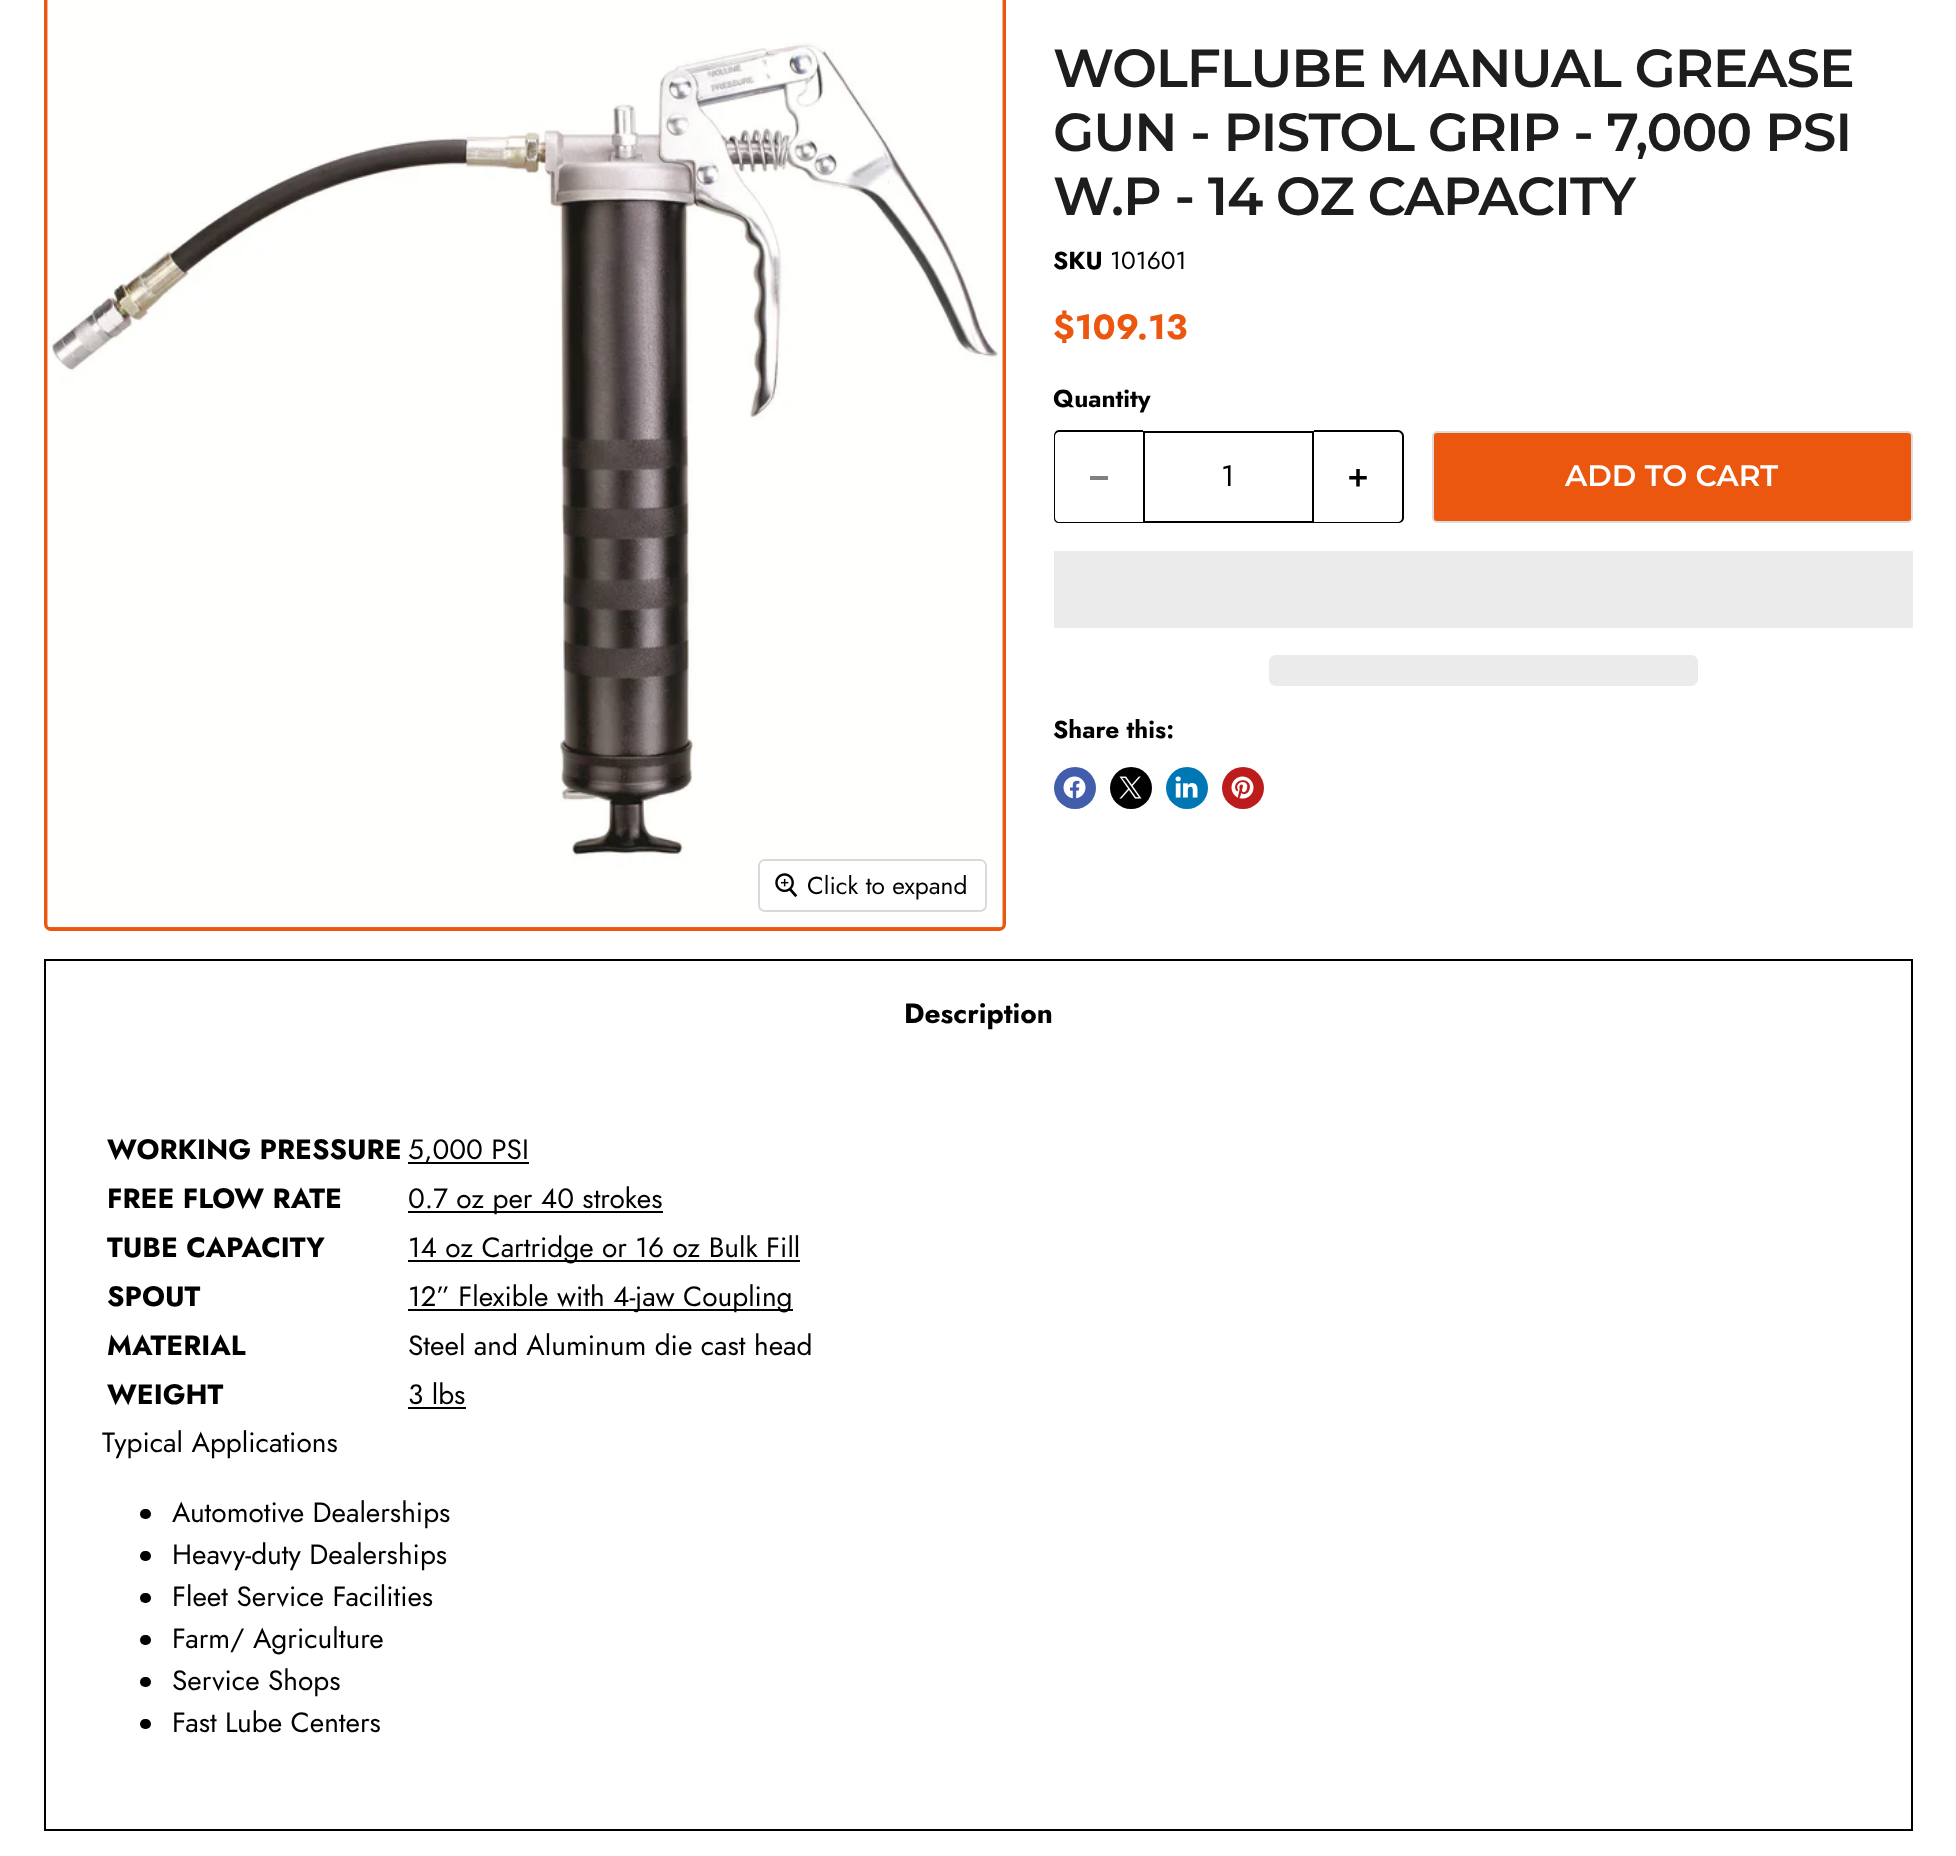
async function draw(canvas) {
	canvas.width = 1956;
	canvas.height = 1856;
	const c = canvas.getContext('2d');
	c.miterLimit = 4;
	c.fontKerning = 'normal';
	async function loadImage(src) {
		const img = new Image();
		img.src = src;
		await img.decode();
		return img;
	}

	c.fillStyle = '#fff';
	c.fillRect(0, 0, 1956, 1856);
	c.letterSpacing = '-1.1px';
	c.font = '600 53.5px Montserrat';
	c.fillStyle = '#1d1d1d';
	for (const [text, x, y] of [
		['WOLFLUBE MANUAL GREASE', 1053, 87],
		['GUN - PISTOL GRIP - 7,000 PSI', 1053, 151],
		['W.P - 14 OZ CAPACITY', 1053, 215],
	]) {
		c.fillText(text, x, y);
	}
	c.letterSpacing = '0px';
	c.font = 'bold 24.5px Jost';
	c.fillStyle = '#000';
	c.fillText('SKU', 1053, 269);
	c.font = '24.5px Jost';
	c.fillText('101601', 1110, 269);
	c.font = 'bold 35px Jost';
	c.fillStyle = '#eb570e';
	c.fillText('$109.13', 1053, 339);
	c.font = 'bold 24.5px Jost';
	c.fillStyle = '#000';
	c.fillText('Quantity', 1053, 407);
	c.beginPath();
	c.moveTo(1059, 430);
	c.lineTo(1143, 430);
	c.lineTo(1143, 523);
	c.lineTo(1059, 523);
	c.bezierCurveTo(1056, 523, 1054, 521, 1054, 518);
	c.lineTo(1054, 436);
	c.bezierCurveTo(1054, 433, 1056, 430, 1059, 430);
	c.closePath();
	c.moveTo(1059, 432);
	c.lineTo(1143, 432);
	c.lineTo(1143, 522);
	c.lineTo(1059, 522);
	c.bezierCurveTo(1057, 522, 1055, 520, 1055, 518);
	c.lineTo(1055, 436);
	c.bezierCurveTo(1055, 434, 1057, 432, 1059, 432);
	c.closePath();
	c.fill('evenodd');
	c.fillStyle = '#808080';
	c.fillRect(1090, 476, 18, 4);
	c.strokeStyle = '#000';
	c.lineWidth = 2;
	c.strokeRect(1144, 432, 169, 90);
	c.font = '29.75px Jost';
	c.fillStyle = '#000';
	c.fillText('1', 1221, 486);
	c.beginPath();
	c.moveTo(1314, 430);
	c.lineTo(1398, 430);
	c.bezierCurveTo(1401, 430, 1404, 433, 1404, 436);
	c.lineTo(1404, 518);
	c.bezierCurveTo(1404, 521, 1401, 523, 1398, 523);
	c.lineTo(1314, 523);
	c.closePath();
	c.moveTo(1314, 432);
	c.lineTo(1398, 432);
	c.bezierCurveTo(1400, 432, 1402, 434, 1402, 436);
	c.lineTo(1402, 518);
	c.bezierCurveTo(1402, 520, 1400, 522, 1398, 522);
	c.lineTo(1314, 522);
	c.closePath();
	c.fill('evenodd');
	c.drawImage(await loadImage('img1.png'), 1349, 469, 18, 18);
	c.fillStyle = '#eb570e';
	c.beginPath();
	c.roundRect(1433, 432, 479, 90, 4);
	c.fill();
	c.strokeStyle = '#ddd';
	c.stroke();
	c.font = '600 29.75px Montserrat';
	c.fillStyle = '#fff';
	c.fillText('ADD TO CART', 1565, 486);
	c.fillStyle = '#ebebeb';
	c.fillRect(1054, 551, 859, 77);
	c.beginPath();
	c.roundRect(1269, 655, 429, 31, 7);
	c.fill();
	c.font = 'bold 24.5px Jost';
	c.fillStyle = '#000';
	c.fillText('Share this:', 1053, 738);
	c.fillStyle = '#425dab';
	c.beginPath();
	c.arc(1075, 788, 21, 0, 2 * Math.PI);
	c.fill();
	c.drawImage(await loadImage('img2.png'), 1063, 776, 23, 23);
	c.fillStyle = '#000';
	c.beginPath();
	c.arc(1131, 788, 21, 0, 2 * Math.PI);
	c.fill();
	c.drawImage(await loadImage('img3.png'), 1119, 776, 23, 23);
	c.fillStyle = '#0077b5';
	c.beginPath();
	c.arc(1187, 788, 21, 0, 2 * Math.PI);
	c.fill();
	c.drawImage(await loadImage('img4.png'), 1175, 776, 23, 22);
	c.fillStyle = '#bd1c1c';
	c.beginPath();
	c.arc(1243, 788, 21, 0, 2 * Math.PI);
	c.fill();
	c.drawImage(await loadImage('img5.png'), 1231, 776, 23, 23);
	c.beginPath();
	c.roundRect(46, -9, 958, 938, 5);
	c.strokeStyle = '#eb570e';
	c.lineWidth = 4;
	c.stroke();
	c.drawImage(await loadImage('img6.png'), 47, 0, 956, 928);
	c.beginPath();
	c.roundRect(759, 860, 227, 51, 6);
	c.strokeStyle = '#d9d9d7';
	c.lineWidth = 2;
	c.stroke();
	c.fillStyle = '#ffffffe6';
	c.beginPath();
	c.roundRect(760, 861, 225, 49, 5);
	c.fill();
	c.drawImage(await loadImage('img7.png'), 775, 873, 23, 25);
	c.font = '24.5px Jost';
	c.fillStyle = '#000';
	c.fillText('Click to expand', 807, 894);
	for (const [x, y, w, h, color] of [
		[44, 959, 1869, 2, '#000'],
		[1911, 959, 2, 872, '#000'],
		[44, 959, 2, 110, '#000'],
	]) {
		c.fillStyle = color;
		c.fillRect(x, y, w, h);
	}
	c.font = 'bold 28px Jost';
	c.fillText('Description', 904, 1023);
	c.fillRect(44, 1829, 1869, 2);
	c.fillRect(44, 1069, 2, 762);
	c.fillText('WORKING PRESSURE', 107, 1159);
	c.fillRect(408, 1162, 121, 2);
	c.font = '28px Jost';
	c.fillText('5,000 PSI', 408, 1159);
	c.font = 'bold 28px Jost';
	c.fillText('FREE FLOW RATE', 107, 1208);
	c.fillRect(408, 1211, 255, 2);
	c.font = '28px Jost';
	c.fillText('0.7 oz per 40 strokes', 408, 1208);
	c.font = 'bold 28px Jost';
	c.fillText('TUBE CAPACITY', 107, 1257);
	c.fillRect(408, 1260, 392, 2);
	c.font = '28px Jost';
	c.fillText('14 oz Cartridge or 16 oz Bulk Fill', 408, 1257);
	c.font = 'bold 28px Jost';
	c.fillText('SPOUT', 107, 1306);
	c.fillRect(408, 1309, 385, 2);
	c.font = '28px Jost';
	c.fillText('12” Flexible with 4-jaw Coupling', 408, 1306);
	c.font = 'bold 28px Jost';
	c.fillText('MATERIAL', 107, 1355);
	c.font = '28px Jost';
	c.fillText('Steel and Aluminum die cast head', 408, 1355);
	c.font = 'bold 28px Jost';
	c.fillText('WEIGHT', 107, 1404);
	c.font = '28px Jost';
	c.fillText('3 lbs', 408, 1404);
	c.fillRect(408, 1407, 58, 2);
	c.fillText('Typical Applications', 102, 1452);
	c.beginPath();
	c.roundRect(140, 1509, 11, 10, 5);
	c.fill();
	c.fillText('Automotive Dealerships', 172, 1522);
	c.beginPath();
	c.roundRect(140, 1551, 11, 10, 5);
	c.fill();
	c.fillText('Heavy-duty Dealerships', 172, 1564);
	c.beginPath();
	c.roundRect(140, 1593, 11, 10, 5);
	c.fill();
	c.fillText('Fleet Service Facilities', 172, 1606);
	c.beginPath();
	c.roundRect(140, 1635, 11, 10, 5);
	c.fill();
	c.fillText('Farm/ Agriculture', 172, 1648);
	c.beginPath();
	c.roundRect(140, 1677, 11, 10, 5);
	c.fill();
	c.fillText('Service Shops', 172, 1690);
	c.beginPath();
	c.roundRect(140, 1719, 11, 10, 5);
	c.fill();
	c.fillText('Fast Lube Centers', 172, 1732);
}

draw(document.querySelector('canvas'));
